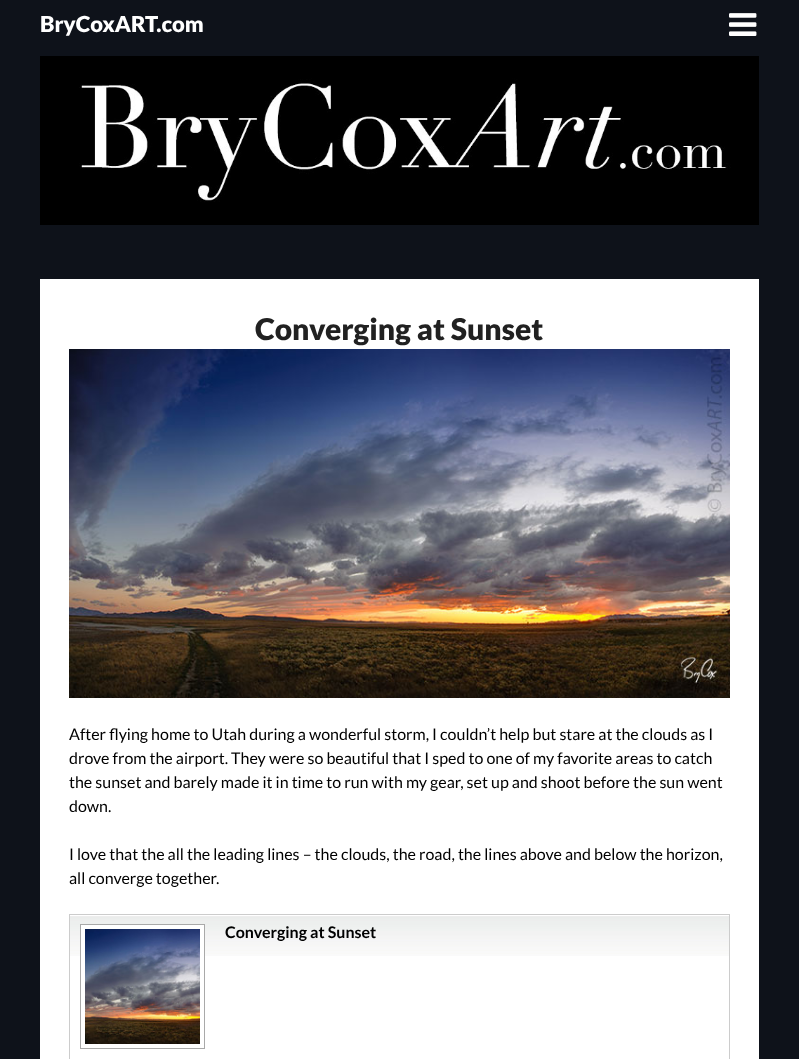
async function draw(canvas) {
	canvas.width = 799;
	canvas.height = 1059;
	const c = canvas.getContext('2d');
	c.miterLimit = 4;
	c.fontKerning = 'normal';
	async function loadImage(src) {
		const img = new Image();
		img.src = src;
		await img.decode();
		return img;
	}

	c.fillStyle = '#0e121a';
	c.fillRect(0, 0, 799, 1059);
	c.font = '900 22px Lato';
	c.fillStyle = '#fff';
	c.fillText('BryCoxART.com', 40, 32);
	c.drawImage(await loadImage('img1.png'), 729, 13, 28, 23);
	c.drawImage(await loadImage('img2.png'), 40, 56, 719, 169);
	c.fillRect(40, 279, 719, 780);
	c.font = '900 30px Lato';
	c.fillStyle = '#212121';
	c.fillText('Converging at Sunset', 255, 340);
	c.drawImage(await loadImage('img3.png'), 69, 349, 661, 349);
	c.font = '16px Lato';
	c.fillStyle = '#000';
	for (const [text, x, y] of [
		['After flying home to Utah during a wonderful storm, I couldn’t help but stare at the clouds as I', 69, 740],
		['drove from the airport. They were so beautiful that I sped to one of my favorite areas to catch', 69, 764],
		['the sunset and barely made it in time to run with my gear, set up and shoot before the sun went', 69, 788],
		['down.', 69, 812],
		['I love that the all the leading lines – the clouds, the road, the lines above and below the horizon,', 69, 860],
		['all converge together.', 69, 884],
	]) {
		c.fillText(text, x, y);
	}
	c.drawImage(await loadImage('img4.png'), 70, 916, 659, 40);
	c.strokeStyle = '#ccc';
	c.strokeRect(69.5, 914.5, 660, 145);
	c.fillStyle = '#fff';
	c.fillRect(81, 925, 123, 31);
	c.strokeStyle = '#a9a9a9';
	c.strokeRect(80.5, 924.5, 124, 124);
	c.drawImage(await loadImage('img5.png'), 85, 929, 115, 115);
	c.font = 'bold 16px Lato';
	c.fillStyle = '#000';
	c.fillText('Converging at Sunset', 225, 938);
}

draw(document.querySelector('canvas'));
